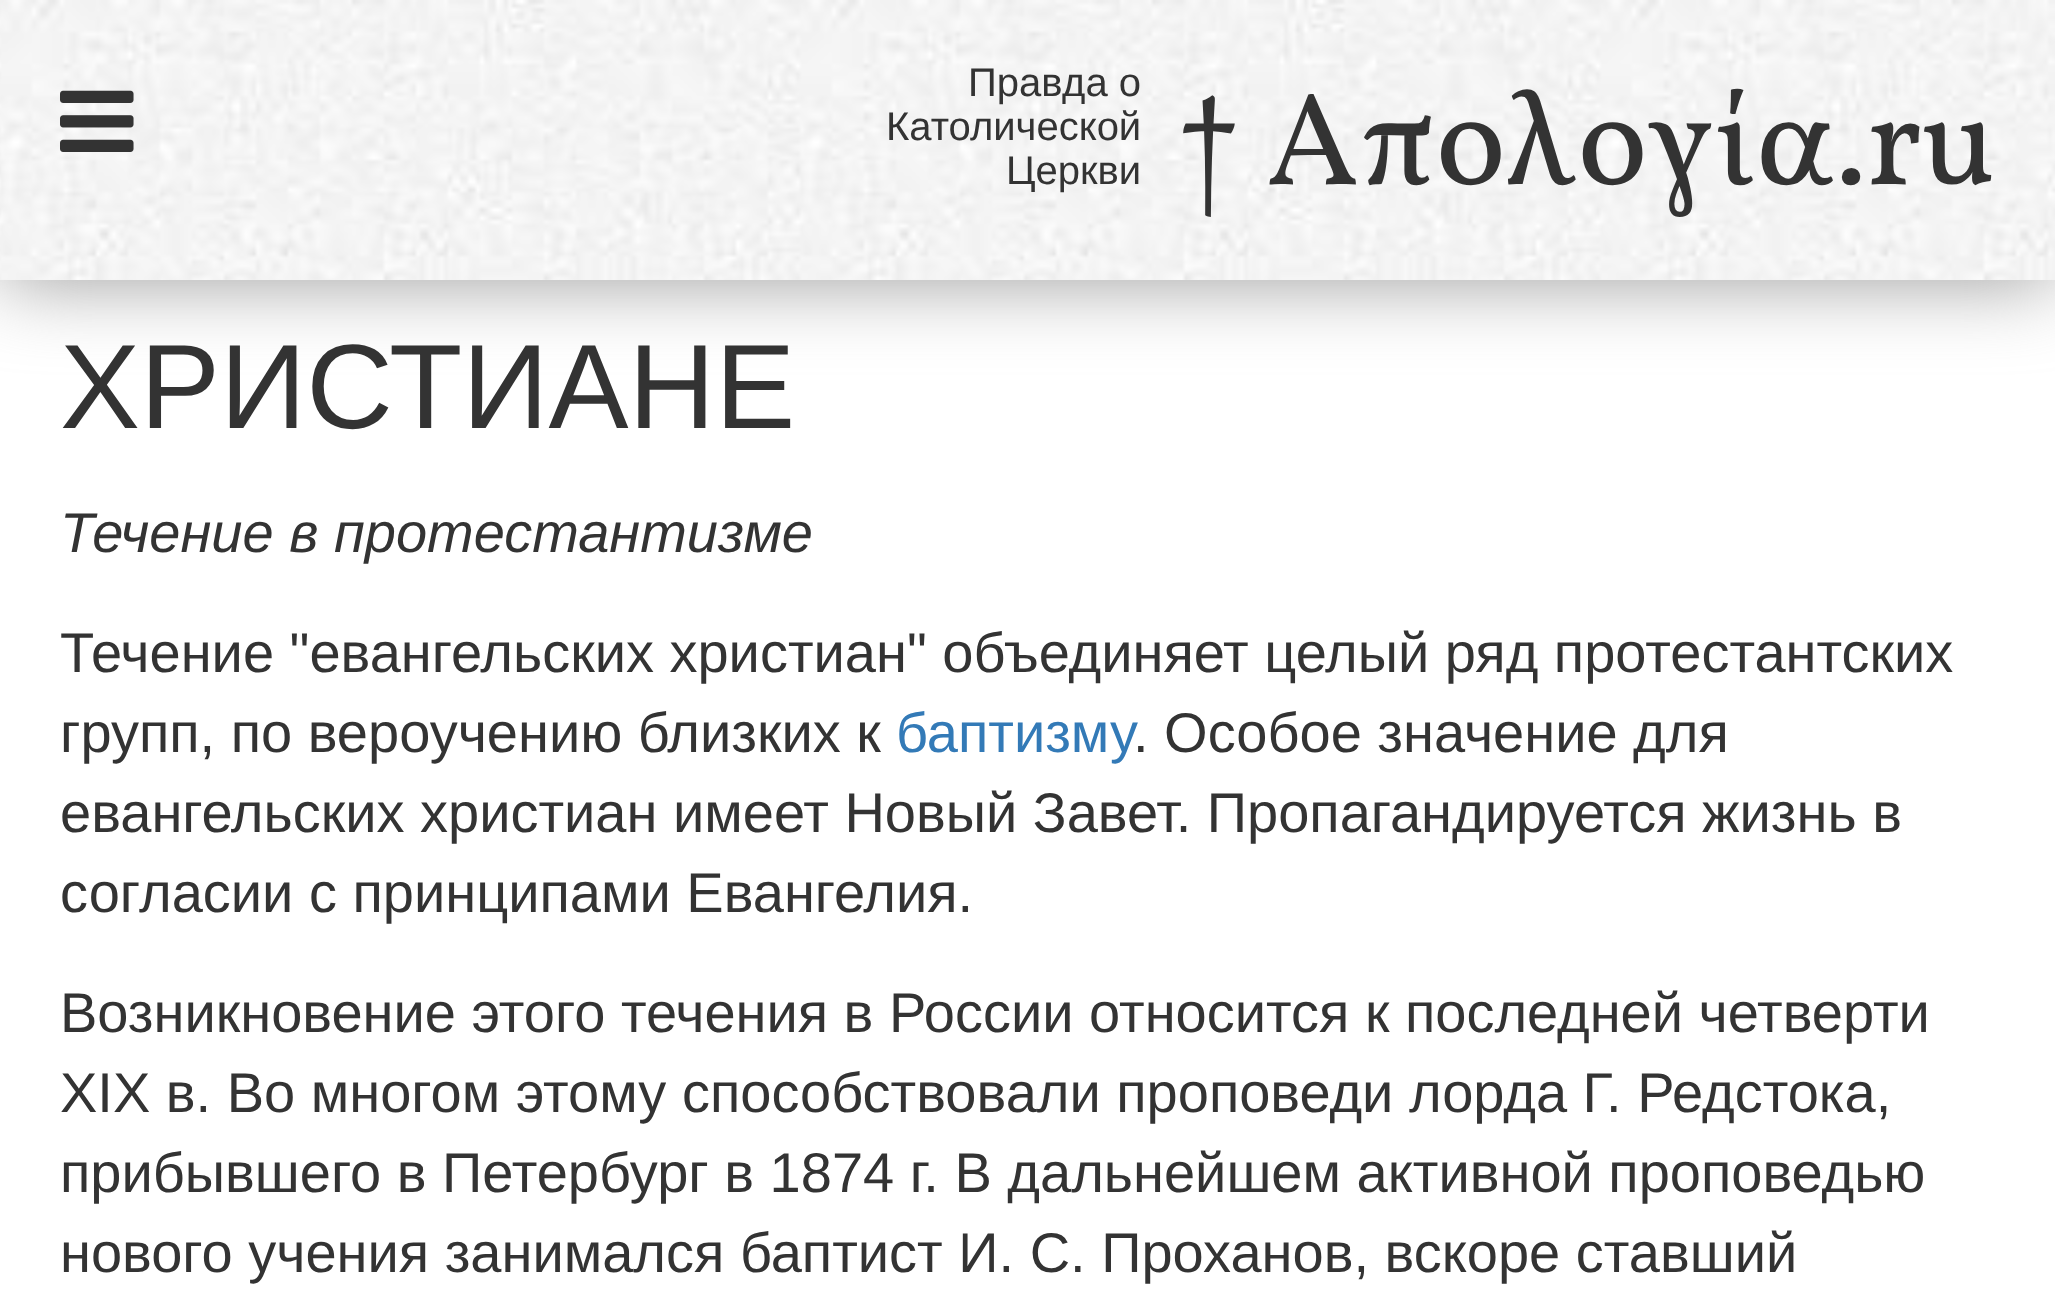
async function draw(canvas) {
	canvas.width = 2055;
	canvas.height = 1315;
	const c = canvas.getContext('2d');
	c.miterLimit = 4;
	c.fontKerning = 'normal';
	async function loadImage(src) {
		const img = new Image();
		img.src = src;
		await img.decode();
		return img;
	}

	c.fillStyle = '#fff';
	c.fillRect(0, 0, 2055, 1315);
	c.fillStyle = '#999';
	c.filter = 'blur(40px)';
	c.beginPath();
	c.rect(0, 0, 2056, 280);
	c.fill();
	c.filter = 'none';
	c.drawImage(await loadImage('img1.png'), 0, 0, 2055, 280);
	c.drawImage(await loadImage('img2.png'), 60, 90, 74, 62);
	c.font = '40px Liberation Sans';
	c.fillStyle = '#333';
	for (const [text, x, y] of [
		['Правда о', 968, 96],
		['Католической', 886, 140],
		['Церкви', 1006, 184],
	]) {
		c.fillText(text, x, y);
	}
	c.font = '132px Vollkorn';
	c.fillText('† Απολογία.ru', 1178, 184);
	c.font = '120px Liberation Sans';
	c.fillText('ХРИСТИАНЕ', 60, 428);
	c.font = 'italic 56px Liberation Sans';
	c.fillText('Течение в протестантизме', 60, 552);
	c.font = '56px Liberation Sans';
	c.fillText('Течение "евангельских христиан" объединяет целый ряд протестантских', 60, 672);
	c.fillText('групп, по вероучению близких к', 60, 752);
	c.fillStyle = '#337ab7';
	c.fillText('баптизму', 896, 752);
	c.fillStyle = '#333';
	for (const [text, x, y] of [
		['. Особое значение для', 1133, 752],
		['евангельских христиан имеет Новый Завет. Пропагандируется жизнь в', 60, 832],
		['согласии с принципами Евангелия.', 60, 912],
		['Возникновение этого течения в России относится к последней четверти', 60, 1032],
		['XIX в. Во многом этому способствовали проповеди лорда Г. Редстока,', 60, 1112],
		['прибывшего в Петербург в 1874 г. В дальнейшем активной проповедью', 60, 1192],
		['нового учения занимался баптист И. С. Проханов, вскоре ставший', 60, 1272],
	]) {
		c.fillText(text, x, y);
	}
}

draw(document.querySelector('canvas'));
